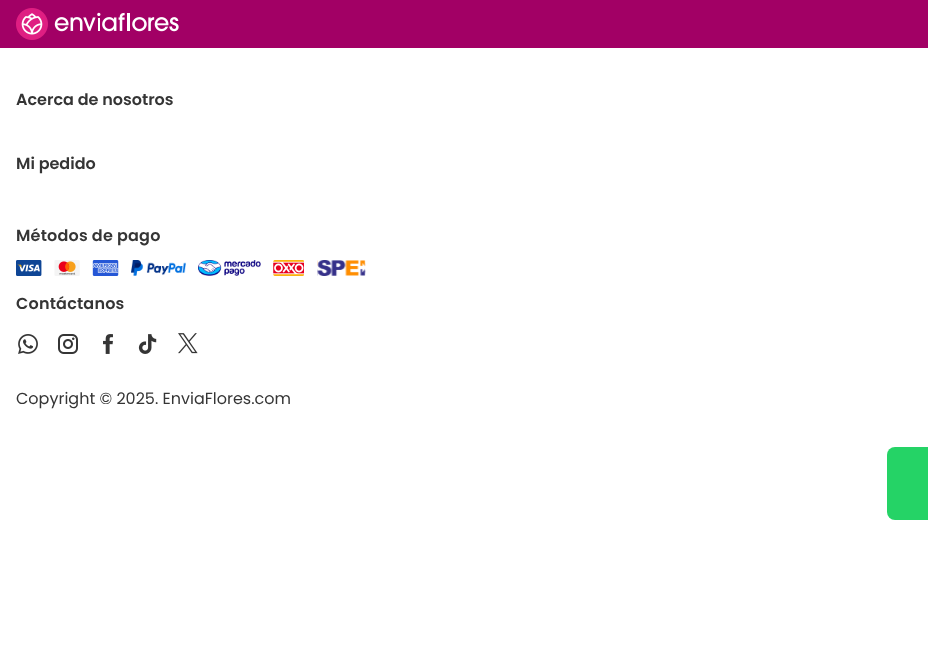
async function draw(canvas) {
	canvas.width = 928;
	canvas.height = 647;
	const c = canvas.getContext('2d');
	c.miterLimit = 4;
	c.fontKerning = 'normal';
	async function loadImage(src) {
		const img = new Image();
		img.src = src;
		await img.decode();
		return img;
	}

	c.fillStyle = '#fff';
	c.fillRect(0, 0, 928, 647);
	c.fillStyle = '#a20065';
	c.fillRect(0, 0, 928, 48);
	c.drawImage(await loadImage('img1.png'), 16, 8, 163, 32);
	c.font = '600 16px Poppins';
	c.fillStyle = '#353535';
	c.fillText('Acerca de nosotros', 16, 105);
	c.fillText('Mi pedido', 16, 169);
	c.letterSpacing = '0.2px';
	c.fillText('Métodos de pago', 16, 241);
	c.drawImage(await loadImage('img2.png'), 16, 260, 26, 16);
	c.drawImage(await loadImage('img3.png'), 54, 260, 26, 16);
	c.drawImage(await loadImage('img4.png'), 92, 260, 27, 16);
	c.drawImage(await loadImage('img5.png'), 131, 260, 55, 16);
	c.drawImage(await loadImage('img6.png'), 198, 260, 63, 16);
	c.drawImage(await loadImage('img7.png'), 273, 260, 31, 16);
	c.drawImage(await loadImage('img8.png'), 317, 260, 49, 16);
	c.fillText('Contáctanos', 16, 309);
	c.drawImage(await loadImage('img9.png'), 18, 334, 20, 20);
	c.drawImage(await loadImage('img10.png'), 58, 334, 20, 20);
	c.drawImage(await loadImage('img11.png'), 103, 334, 10, 20);
	c.drawImage(await loadImage('img12.png'), 138, 334, 19, 20);
	c.drawImage(await loadImage('img13.png'), 178, 333, 20, 21);
	c.letterSpacing = '0px';
	c.font = '16px Poppins';
	c.fillText('Copyright © 2025. EnviaFlores.com', 16, 404);
	c.fillStyle = '#25d366';
	c.beginPath();
	c.roundRect(887, 447, 41, 73, [8, 0, 0, 8]);
	c.fill();
}

draw(document.querySelector('canvas'));
